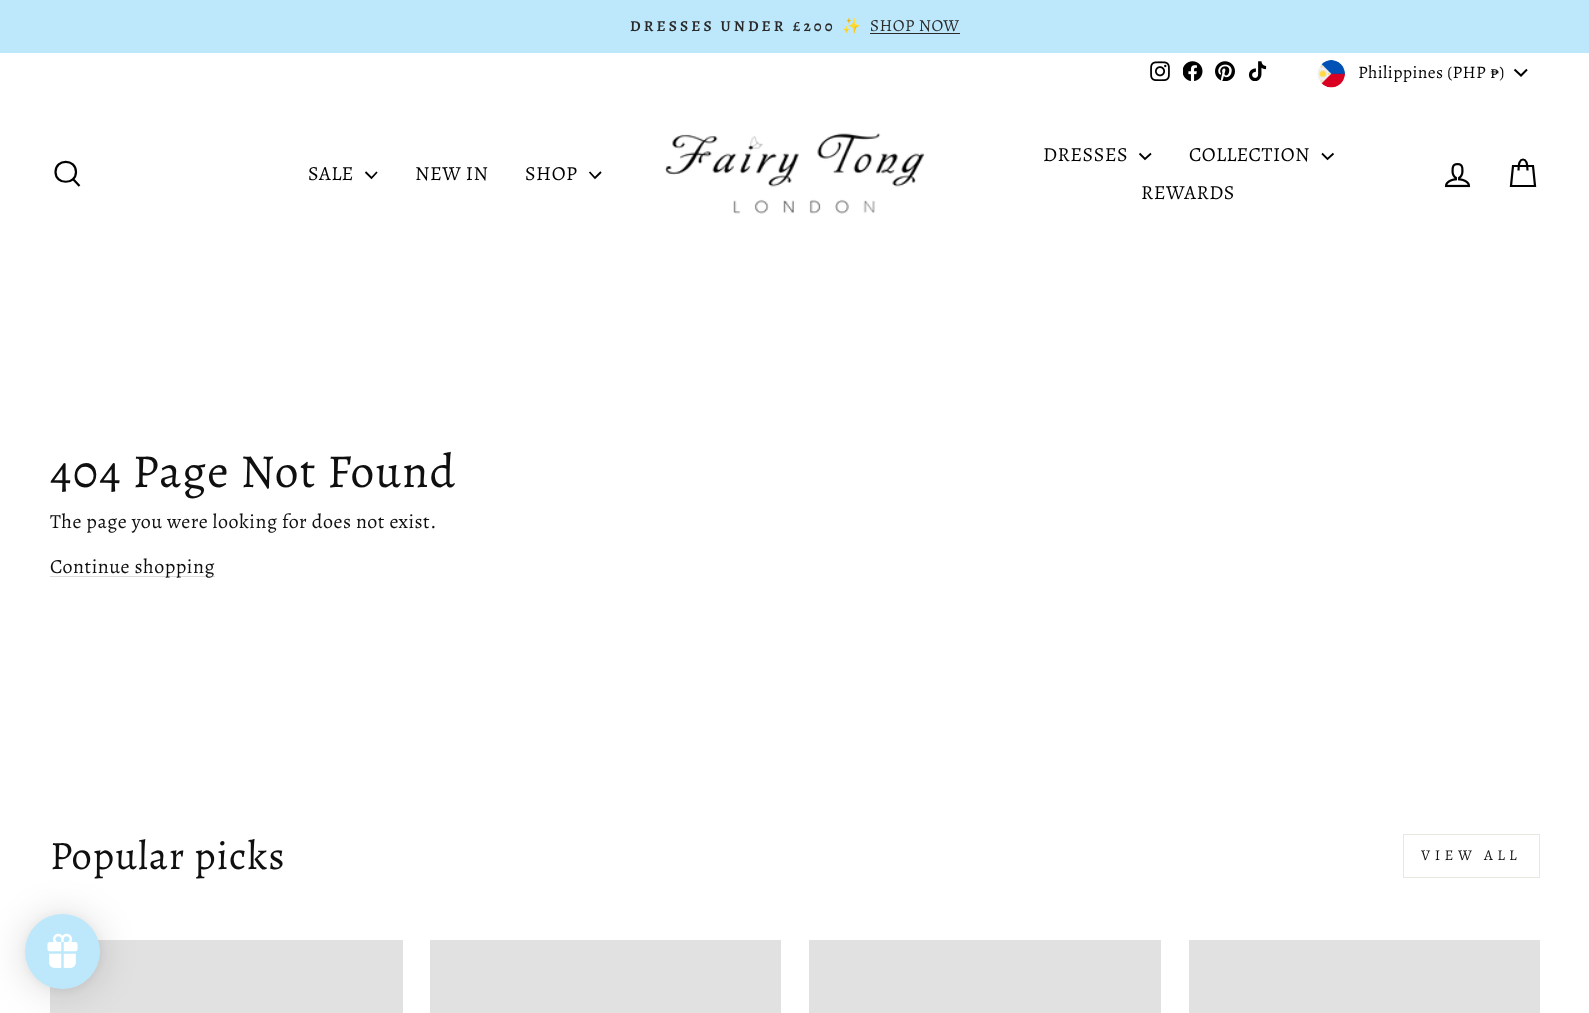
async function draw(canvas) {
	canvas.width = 1589;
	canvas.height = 1013;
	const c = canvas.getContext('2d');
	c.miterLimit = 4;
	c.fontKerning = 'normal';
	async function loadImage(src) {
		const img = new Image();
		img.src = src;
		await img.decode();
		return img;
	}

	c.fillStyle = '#fff';
	c.fillRect(0, 0, 1589, 1013);
	c.fillStyle = '#bde8fc';
	c.fillRect(0, 0, 1589, 53);
	c.letterSpacing = '3.1px';
	c.font = '600 15.25px Alegreya';
	c.fillStyle = '#2b2a2a';
	c.fillText('DRESSES UNDER £200', 630, 31);
	c.font = 'bold 15.25px Noto Color Emoji';
	c.fillText('✨', 842, 31);
	c.letterSpacing = '0.5px';
	c.font = '17px Alegreya';
	c.fillText('SHOP NOW', 870, 31);
	c.fillRect(870, 33, 90, 1);
	c.drawImage(await loadImage('img1.png'), 1150, 61, 20, 20);
	c.drawImage(await loadImage('img2.png'), 1183, 61, 20, 20);
	c.drawImage(await loadImage('img3.png'), 1215, 61, 20, 20);
	c.drawImage(await loadImage('img4.png'), 1248, 61, 19, 20);
	c.drawImage(await loadImage('img5.png'), 1317, 60, 28, 28);
	c.letterSpacing = '0.4px';
	c.font = '17.5px Alegreya';
	c.fillStyle = '#000';
	c.fillText('Philippines (PHP ₱)', 1358, 78);
	c.beginPath();
	c.moveTo(1514.5, 69.5);
	c.lineTo(1521, 75.5);
	c.lineTo(1527, 69.5);
	c.strokeStyle = '#000';
	c.lineWidth = 2;
	c.stroke();
	c.fillStyle = '#00000033';
	c.filter = 'blur(0.5px)';
	c.beginPath();
	c.rect(0, 94, 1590, 160);
	c.fill();
	c.filter = 'none';
	c.fillStyle = '#fff';
	c.fillRect(0, 94, 1589, 160);
	c.beginPath();
	c.moveTo(76, 172);
	c.bezierCurveTo(76, 185, 55.5, 185, 55.5, 172);
	c.bezierCurveTo(55.5, 158.5, 76, 158.5, 76, 172);
	c.closePath();
	c.moveTo(79.5, 186);
	c.lineTo(73, 179);
	c.lineWidth = 2.2;
	c.stroke();
	c.letterSpacing = '0.5px';
	c.font = '20px Alegreya';
	c.fillStyle = '#000';
	c.fillText('SALE', 308, 180);
	c.beginPath();
	c.moveTo(365.5, 172);
	c.lineTo(371.5, 178);
	c.lineTo(377, 172);
	c.lineWidth = 1.8;
	c.stroke();
	c.fillText('NEW IN', 415, 180);
	c.fillText('SHOP', 525, 180);
	c.beginPath();
	c.moveTo(589.5, 172);
	c.lineTo(595, 178);
	c.lineTo(601, 172);
	c.stroke();
	c.drawImage(await loadImage('img6.png'), 665, 133, 260, 81);
	c.fillText('DRESSES', 1043, 161);
	c.beginPath();
	c.moveTo(1139.5, 153.5);
	c.lineTo(1145, 159);
	c.lineTo(1151, 153.5);
	c.stroke();
	c.fillText('COLLECTION', 1189, 161);
	c.beginPath();
	c.moveTo(1322, 153.5);
	c.lineTo(1327.5, 159);
	c.lineTo(1333.5, 153.5);
	c.stroke();
	c.fillText('REWARDS', 1141, 199);
	c.drawImage(await loadImage('img7.png'), 1444, 163, 27, 25);
	c.beginPath();
	c.moveTo(1518.5, 170.5);
	c.bezierCurveTo(1518.5, 162, 1520.5, 159.5, 1523, 159.5);
	c.bezierCurveTo(1525.5, 159.5, 1527.5, 162, 1527.5, 170.5);
	c.moveTo(1513, 166);
	c.lineTo(1533, 166);
	c.lineTo(1535, 186);
	c.lineTo(1511, 186);
	c.closePath();
	c.lineWidth = 2.2;
	c.stroke();
	c.letterSpacing = '1.2px';
	c.font = '47.5px Alegreya';
	c.fillStyle = '#0f0f0f';
	c.fillText('404 Page Not Found', 50, 487);
	c.letterSpacing = '0.5px';
	c.font = '20px Alegreya';
	c.fillText('The page you were looking for does not exist.', 50, 528);
	c.fillStyle = '#dbdbdb';
	c.fillRect(50, 576, 165, 1);
	c.fillStyle = '#0f0f0f';
	c.fillText('Continue shopping', 50, 573);
	c.letterSpacing = '1px';
	c.font = '40.5px Alegreya';
	c.fillText('Popular picks', 50, 869);
	c.strokeStyle = '#e8e8e1';
	c.lineWidth = 1;
	c.strokeRect(1403.5, 834.5, 136, 43);
	c.letterSpacing = '4.5px';
	c.font = '15px Alegreya';
	c.fillText('VIEW ALL', 1421, 860);
	for (const [x, y, w, h, color] of [
		[50, 940, 353, 73, '#e1e1e1'],
		[430, 940, 351, 73, '#e1e1e1'],
		[809, 940, 352, 73, '#e1e1e1'],
		[1189, 940, 351, 73, '#e1e1e1'],
	]) {
		c.fillStyle = color;
		c.fillRect(x, y, w, h);
	}
	c.fillStyle = '#00000026';
	c.filter = 'blur(19px)';
	c.beginPath();
	c.roundRect(25, 916, 75, 75, 37.5);
	c.fill();
	c.filter = 'none';
	c.fillStyle = '#0000000d';
	c.filter = 'blur(4px)';
	c.beginPath();
	c.roundRect(25, 915, 75, 75, 37.5);
	c.fill();
	c.filter = 'none';
	c.fillStyle = '#bde8fc';
	c.beginPath();
	c.arc(62.5, 951.5, 37.5, 0, 2 * Math.PI);
	c.fill();
	c.drawImage(await loadImage('img8.png'), 47, 933, 31, 35);
}

draw(document.querySelector('canvas'));
